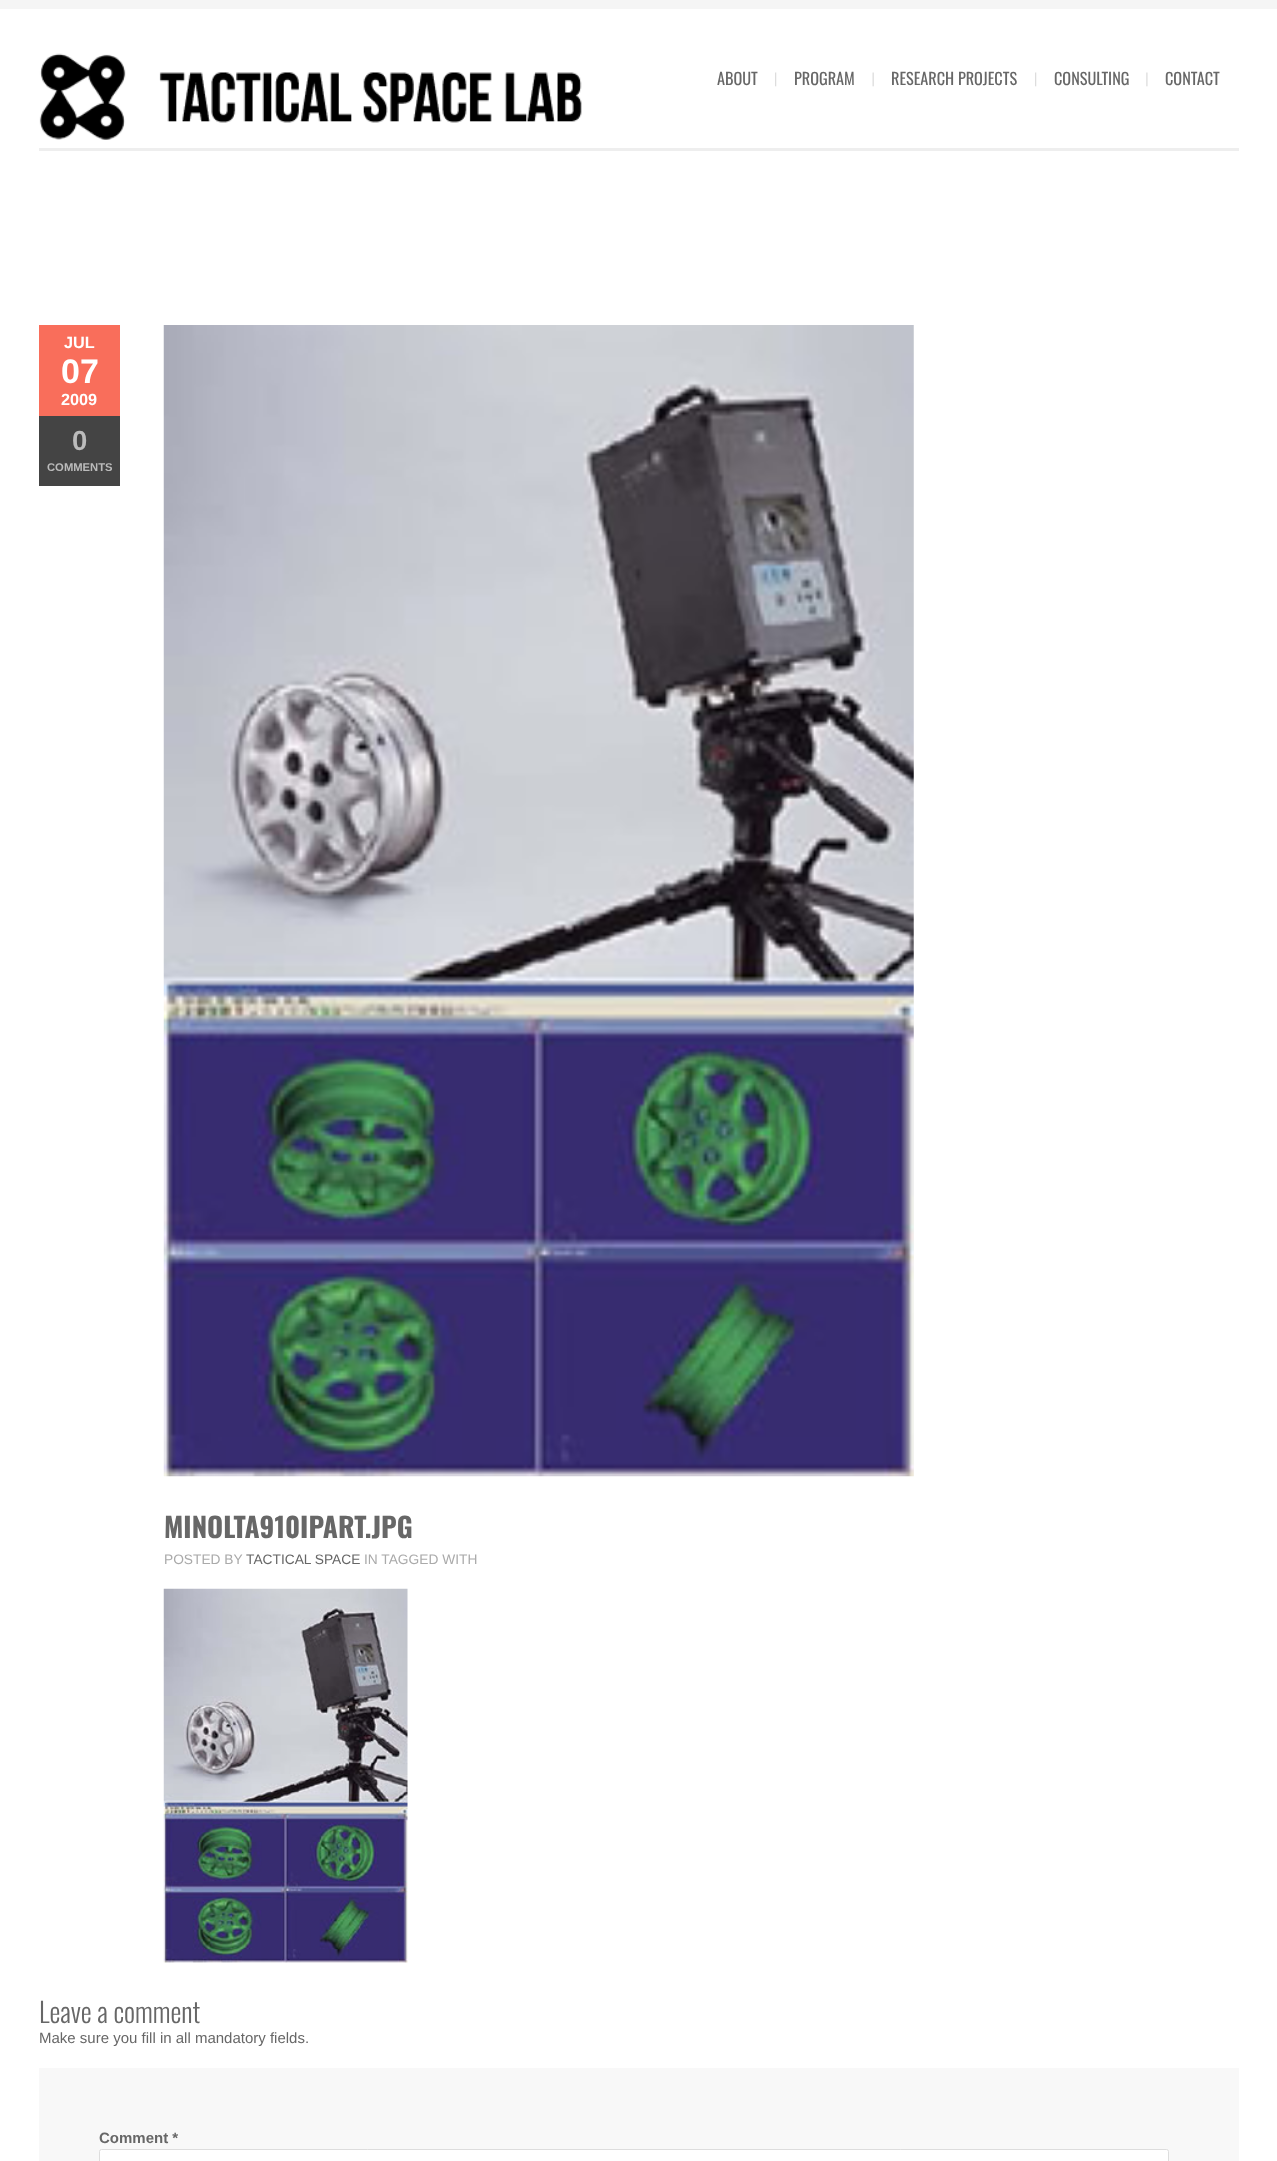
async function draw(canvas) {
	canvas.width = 1277;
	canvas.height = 2161;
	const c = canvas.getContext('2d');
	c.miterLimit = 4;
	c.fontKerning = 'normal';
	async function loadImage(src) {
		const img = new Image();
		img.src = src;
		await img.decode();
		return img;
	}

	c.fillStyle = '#fff';
	c.fillRect(0, 0, 1277, 2161);
	c.fillStyle = '#f5f5f5';
	c.fillRect(0, 0, 1277, 9);
	c.drawImage(await loadImage('img1.png'), 39, 53, 543, 87);
	c.drawImage(await loadImage('img2.png'), 775, 72, 2, 15);
	c.font = '16.25px Oswald';
	c.fillStyle = '#676767';
	c.fillText('ABOUT', 717, 85);
	c.drawImage(await loadImage('img3.png'), 872, 72, 2, 15);
	c.fillText('PROGRAM', 794, 85);
	c.drawImage(await loadImage('img2.png'), 1035, 72, 2, 15);
	c.fillText('RESEARCH PROJECTS', 891, 85);
	c.drawImage(await loadImage('img4.png'), 1146, 72, 2, 15);
	c.fillText('CONSULTING', 1054, 85);
	c.fillText('CONTACT', 1165, 85);
	c.fillStyle = '#eee';
	c.fillRect(39, 148, 1200, 3);
	c.fillStyle = '#f96e5b';
	c.fillRect(39, 325, 81, 91);
	c.font = 'bold 16.25px Liberation Sans';
	c.fillStyle = '#fff';
	c.fillText('JUL', 64, 348);
	c.font = 'bold 34px Liberation Sans';
	c.fillText('07', 61, 383);
	c.font = 'bold 16.25px Liberation Sans';
	c.fillText('2009', 61, 405);
	c.fillStyle = '#444';
	c.fillRect(39, 416, 81, 70);
	c.font = 'bold 27.5px Liberation Sans';
	c.fillStyle = '#bbb';
	c.fillText('0', 72, 450);
	c.font = 'bold 11.25px Liberation Sans';
	c.fillText('COMMENTS', 47, 471);
	c.drawImage(await loadImage('img5.png'), 163, 325, 751, 1152);
	c.font = 'bold 27.5px Oswald';
	c.fillStyle = '#676767';
	c.fillText('MINOLTA910IPART.JPG', 164, 1538);
	c.font = '13.75px Liberation Sans';
	c.fillStyle = '#aaa';
	c.fillText('POSTED BY', 164, 1564);
	c.fillStyle = '#676767';
	c.fillText('TACTICAL SPACE', 246, 1564);
	c.fillStyle = '#aaa';
	c.fillText('IN TAGGED WITH', 364, 1564);
	c.drawImage(await loadImage('img6.png'), 163, 1588, 245, 375);
	c.font = '300 27.5px Oswald';
	c.fillStyle = '#676767';
	c.fillText('Leave a comment', 39, 2023);
	c.font = '15px Liberation Sans';
	c.fillText('Make sure you fill in all mandatory fields.', 39, 2043);
	c.fillStyle = '#f8f8f8';
	c.fillRect(39, 2068, 1200, 93);
	c.font = 'bold 15px Liberation Sans';
	c.fillStyle = '#676767';
	c.fillText('Comment *', 99, 2143);
	c.fillStyle = '#fff';
	c.beginPath();
	c.roundRect(99.5, 2149.5, 1069, 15, 2);
	c.fill();
	c.strokeStyle = '#ddd';
	c.stroke();
}

draw(document.querySelector('canvas'));
